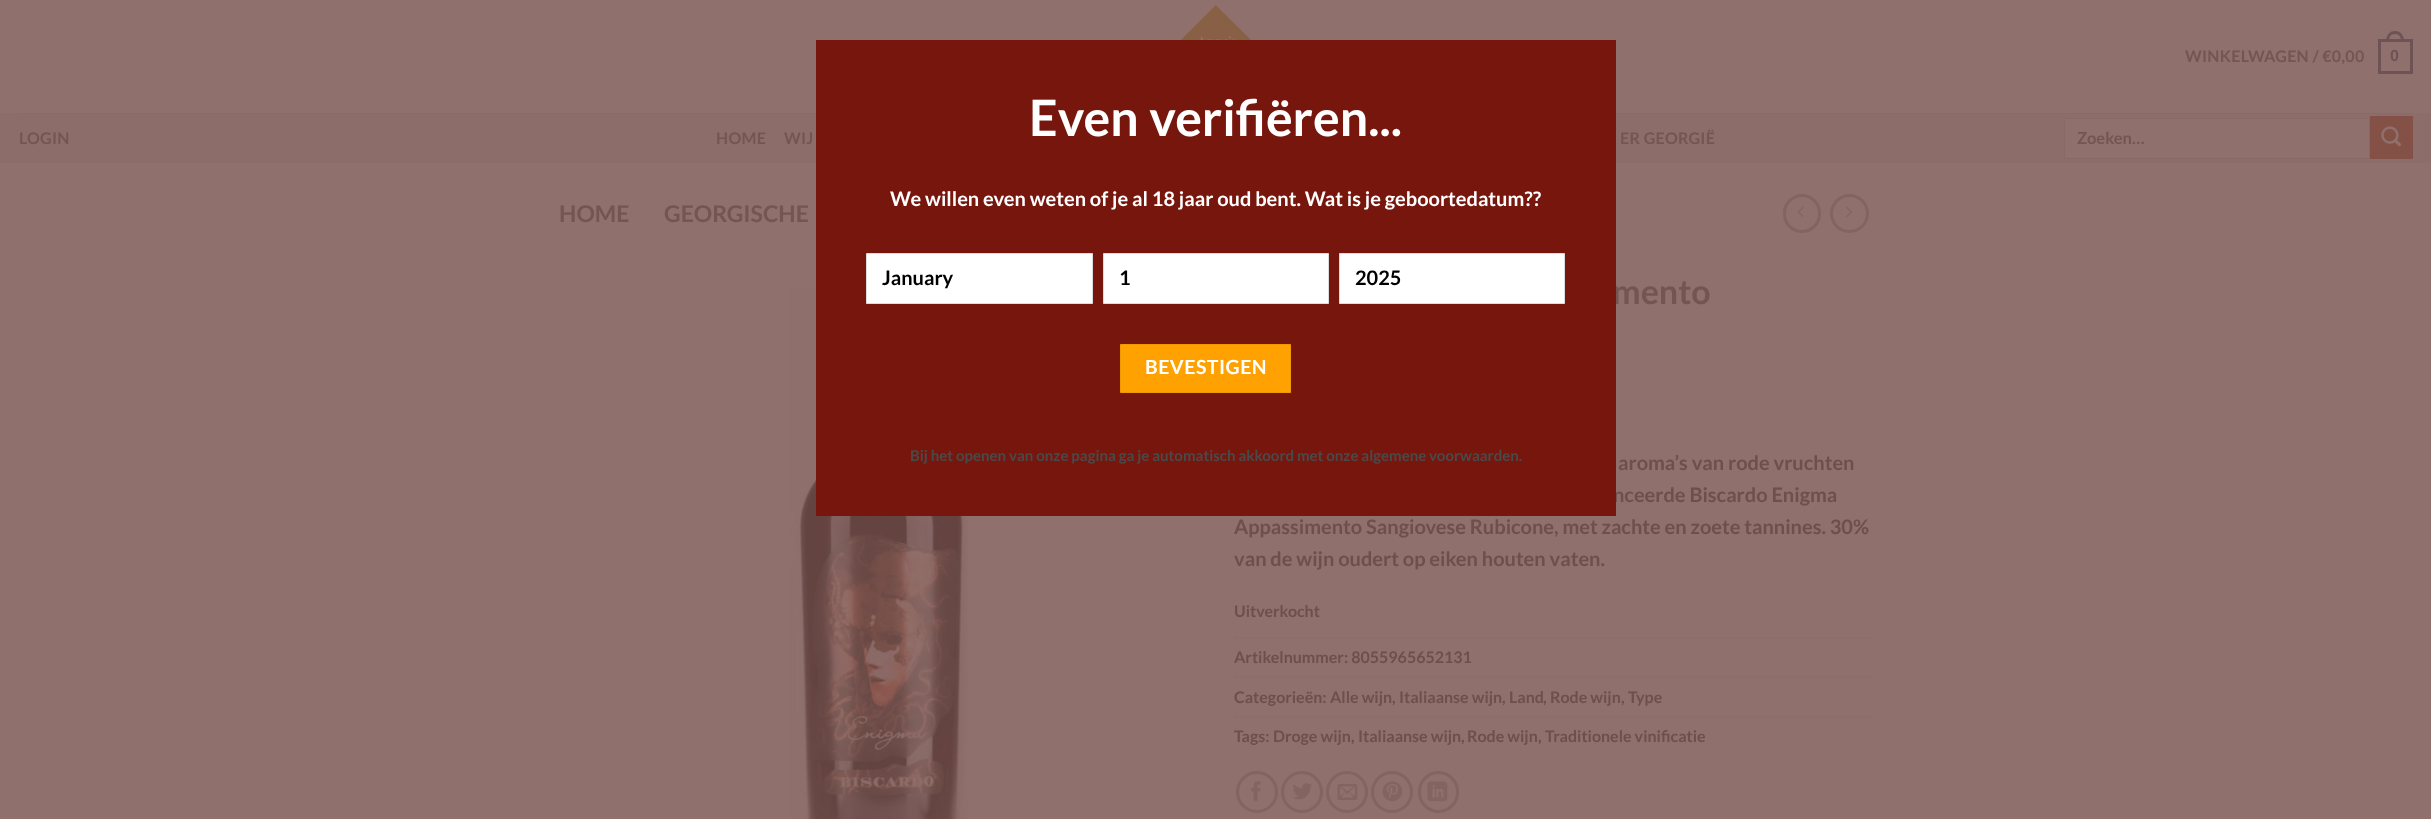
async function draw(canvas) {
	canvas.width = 2431;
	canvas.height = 819;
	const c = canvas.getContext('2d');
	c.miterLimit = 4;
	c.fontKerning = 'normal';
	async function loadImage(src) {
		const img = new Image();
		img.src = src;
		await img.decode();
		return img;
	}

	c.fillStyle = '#8f706c';
	c.fillRect(0, 0, 2431, 819);
	c.drawImage(await loadImage('img1.png'), 1164, 5, 104, 35);
	c.letterSpacing = '0.3px';
	c.font = 'bold 16px Lato';
	c.fillStyle = '#755552';
	c.fillText('WINKELWAGEN / €0,00', 2185, 62);
	c.strokeStyle = '#6e5356';
	c.lineWidth = 3;
	c.strokeRect(2379.5, 40.5, 32, 32);
	c.fillStyle = '#6e5356';
	c.beginPath();
	c.moveTo(2395, 31);
	c.bezierCurveTo(2401, 31, 2404, 36, 2404, 41);
	c.lineTo(2386, 41);
	c.bezierCurveTo(2386, 36, 2389, 31, 2395, 31);
	c.closePath();
	c.moveTo(2395, 34);
	c.bezierCurveTo(2399.5, 34, 2401, 37.5, 2401, 41);
	c.lineTo(2389, 41);
	c.bezierCurveTo(2389, 37.5, 2390.5, 34, 2395, 34);
	c.closePath();
	c.fill('evenodd');
	c.font = 'bold 16px Liberation Sans';
	c.fillText('0', 2390, 61);
	c.fillStyle = '#8d6d6a';
	c.fillRect(0, 113, 2431, 50);
	c.fillStyle = '#8a6a67';
	c.fillRect(19, 113, 2394, 1);
	c.font = 'bold 16px Lato';
	c.fillStyle = '#755552';
	for (const [text, x, y] of [
		['LOGIN', 19, 144],
		['HOME', 716, 144],
		['WIJ', 784, 144],
		['ER GEORGIË', 1620, 144],
	]) {
		c.fillText(text, x, y);
	}
	c.fillStyle = '#8f706c';
	c.beginPath();
	c.rect(2064.5, 118.5, 305, 40);
	c.fill();
	c.strokeStyle = '#896966';
	c.lineWidth = 1;
	c.stroke();
	c.letterSpacing = '0px';
	c.font = 'bold 16.5px Lato';
	c.fillStyle = '#755552';
	c.fillText('Zoeken…', 2077, 144);
	c.fillStyle = '#845147';
	c.beginPath();
	c.rect(2370.5, 116.5, 42, 42);
	c.fill();
	c.strokeStyle = '#825047';
	c.stroke();
	c.drawImage(await loadImage('img2.png'), 2381, 126, 20, 21);
	c.font = 'bold 23px Lato';
	c.fillStyle = '#755552';
	c.fillText('HOME', 559, 222);
	c.fillText('GEORGISCHE', 664, 222);
	c.beginPath();
	c.roundRect(1784.5, 195.5, 35, 36, 17.5);
	c.strokeStyle = '#846461';
	c.lineWidth = 3;
	c.stroke();
	c.drawImage(await loadImage('img3.png'), 1797, 206, 7, 11);
	c.beginPath();
	c.arc(1849.5, 213.5, 18, 0, 2 * Math.PI);
	c.stroke();
	c.drawImage(await loadImage('img4.png'), 1846, 206, 7, 11);
	c.drawImage(await loadImage('img5.png'), 790, 288, 179, 531);
	c.font = 'bold 34px Lato';
	c.fillText('mento', 1612, 304);
	c.font = 'bold 20px Lato';
	c.fillStyle = '#6f4f4c';
	for (const [text, x, y] of [
		['aroma’s van rode vruchten', 1618, 470],
		['nceerde Biscardo Enigma', 1613, 502],
		['Appassimento Sangiovese Rubicone, met zachte en zoete tannines. 30%', 1234, 534],
		['van de wijn oudert op eiken houten vaten.', 1234, 566],
	]) {
		c.fillText(text, x, y);
	}
	c.font = 'bold 16px Lato';
	c.fillText('Uitverkocht', 1234, 617);
	c.beginPath();
	c.moveTo(1235, 638);
	c.lineTo(1872.5, 638);
	c.strokeStyle = '#896966';
	c.lineWidth = 1.2;
	c.setLineDash([1.25, 1.25]);
	c.stroke();
	c.fillText('Artikelnummer: 8055965652131', 1234, 663);
	c.beginPath();
	c.moveTo(1235, 677);
	c.lineTo(1872.5, 677);
	c.stroke();
	for (const [text, x, y] of [
		['Categorieën:', 1234, 703],
		['Alle wijn', 1330, 703],
		[',', 1392, 703],
		['Italiaanse wijn', 1399, 703],
		[',', 1502, 703],
		['Land', 1509, 703],
		[',', 1543, 703],
		['Rode wijn', 1550, 703],
		[',', 1621, 703],
		['Type', 1628, 703],
	]) {
		c.fillText(text, x, y);
	}
	c.beginPath();
	c.moveTo(1235, 717);
	c.lineTo(1872.5, 717);
	c.stroke();
	for (const [text, x, y] of [
		['Tags:', 1234, 742],
		['Droge wijn', 1273, 742],
		[',', 1351, 742],
		['Italiaanse wijn', 1358, 742],
		[',', 1461, 742],
		['Rode wijn', 1467, 742],
		[',', 1538, 742],
		['Traditionele vinificatie', 1545, 742],
	]) {
		c.fillText(text, x, y);
	}
	c.beginPath();
	c.arc(1257, 792, 19.5, 0, 2 * Math.PI);
	c.strokeStyle = '#846461';
	c.lineWidth = 3;
	c.setLineDash([]);
	c.stroke();
	c.drawImage(await loadImage('img6.png'), 1251, 781, 10, 21);
	c.beginPath();
	c.arc(1302, 792, 19.5, 0, 2 * Math.PI);
	c.stroke();
	c.drawImage(await loadImage('img7.png'), 1293, 783, 19, 17);
	c.beginPath();
	c.arc(1347, 792, 19.5, 0, 2 * Math.PI);
	c.stroke();
	c.drawImage(await loadImage('img8.png'), 1337, 783, 21, 17);
	c.beginPath();
	c.arc(1392, 792, 19.5, 0, 2 * Math.PI);
	c.stroke();
	c.drawImage(await loadImage('img9.png'), 1382, 781, 21, 21);
	c.beginPath();
	c.roundRect(1419.5, 772.5, 38, 39, 19);
	c.stroke();
	c.drawImage(await loadImage('img10.png'), 1427, 781, 21, 21);
	c.fillStyle = '#77160d';
	c.fillRect(816, 40, 800, 476);
	c.wordSpacing = '1px';
	c.font = 'bold 50px Lato';
	c.fillStyle = '#fff';
	c.fillText('Even verifiëren...', 1029, 136);
	c.wordSpacing = '0px';
	c.font = 'bold 20px Lato';
	c.fillText('We willen even weten of je al 18 jaar oud bent. Wat is je geboortedatum??', 890, 206);
	c.beginPath();
	c.rect(866.5, 253.5, 226, 50);
	c.fill();
	c.strokeStyle = '#ddd';
	c.lineWidth = 1;
	c.stroke();
	c.fillStyle = '#000';
	c.fillText('January', 882, 285);
	c.fillStyle = '#fff';
	c.beginPath();
	c.rect(1103.5, 253.5, 225, 50);
	c.fill();
	c.stroke();
	c.fillStyle = '#000';
	c.fillText('1', 1119, 285);
	c.fillStyle = '#fff';
	c.beginPath();
	c.rect(1339.5, 253.5, 225, 50);
	c.fill();
	c.stroke();
	c.fillStyle = '#000';
	c.fillText('2025', 1355, 285);
	c.fillStyle = '#ffa100';
	c.beginPath();
	c.rect(1120.5, 344.5, 170, 48);
	c.fill();
	c.strokeStyle = '#f29900';
	c.stroke();
	c.letterSpacing = '0.5px';
	c.font = 'bold 19.5px Lato';
	c.fillStyle = '#fff';
	c.fillText('BEVESTIGEN', 1145, 374);
	c.letterSpacing = '0px';
	c.font = 'bold 15px Lato';
	c.fillStyle = '#4a4a4a';
	c.fillText('Bij het openen van onze pagina ga je automatisch akkoord met onze algemene voorwaarden.', 910, 461);
}

draw(document.querySelector('canvas'));
